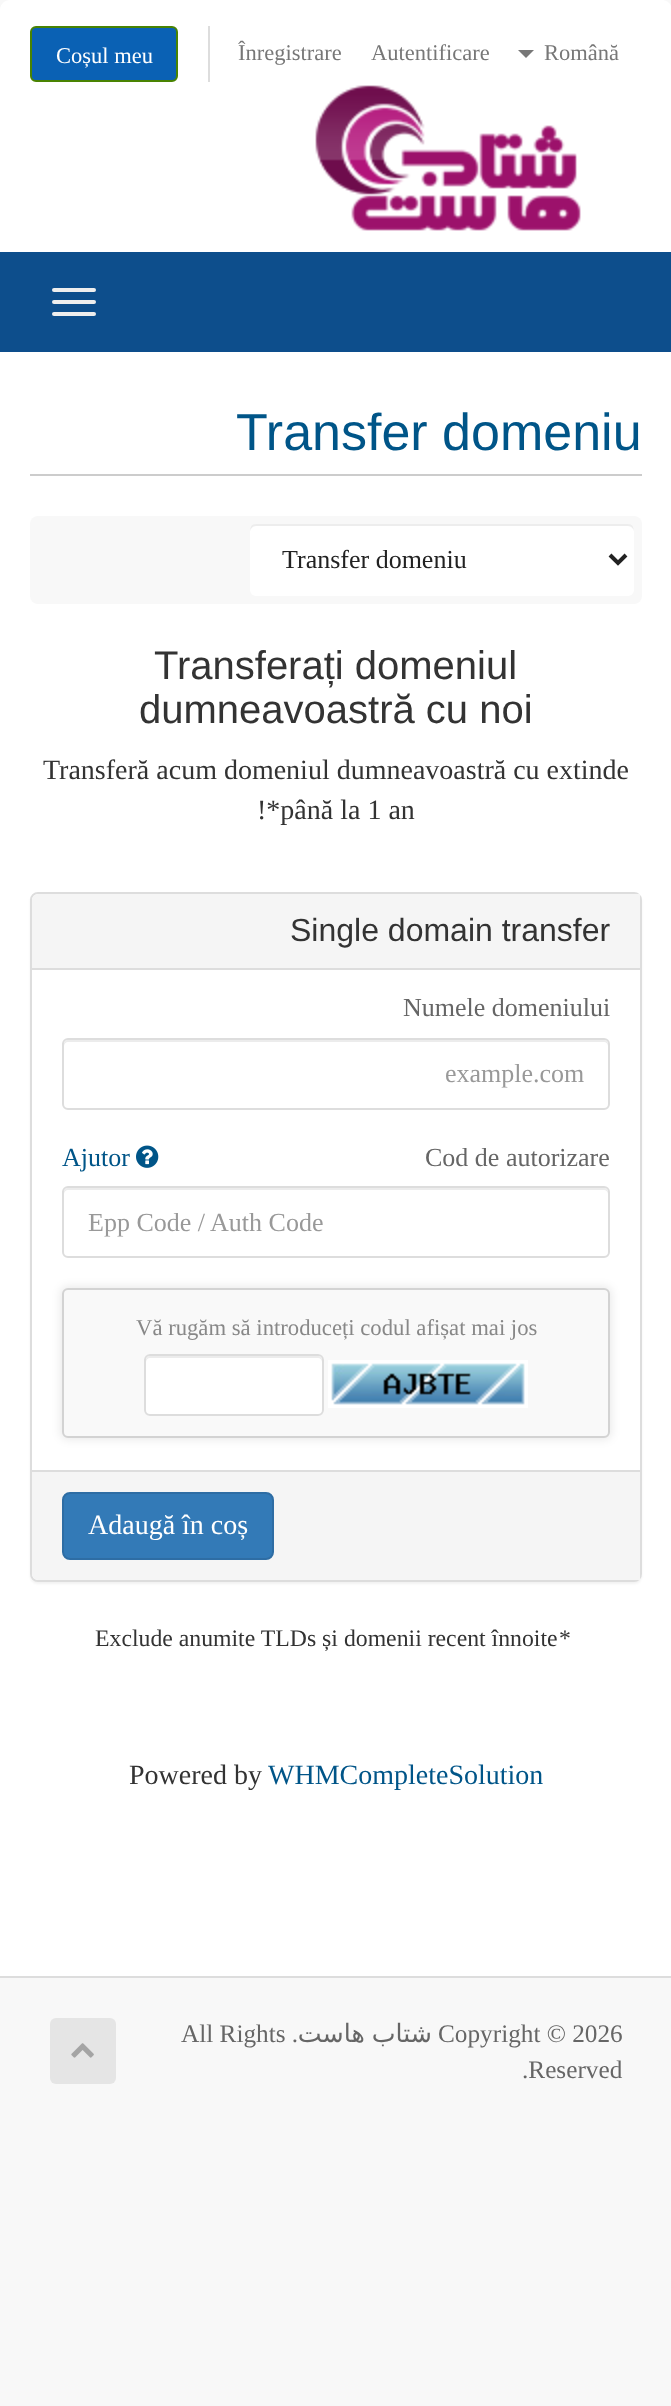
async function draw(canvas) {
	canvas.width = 671;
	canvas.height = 2406;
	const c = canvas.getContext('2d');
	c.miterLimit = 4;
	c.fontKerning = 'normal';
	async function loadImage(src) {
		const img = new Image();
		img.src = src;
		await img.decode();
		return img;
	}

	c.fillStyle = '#f8f8f8';
	c.fillRect(0, 0, 671, 2406);
	c.fillStyle = '#fff';
	c.beginPath();
	c.moveTo(10, 0);
	c.lineTo(662, 0);
	c.bezierCurveTo(667.5, 0, 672, 4.5, 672, 10);
	c.lineTo(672, 252);
	c.lineTo(0, 252);
	c.lineTo(0, 10);
	c.bezierCurveTo(0, 4.5, 4.5, 0, 10, 0);
	c.closePath();
	c.fill();
	c.fillStyle = '#ddd';
	c.fillRect(208, 26, 2, 56);
	c.fillStyle = '#0a61b4';
	c.beginPath();
	c.roundRect(31, 27, 146, 54, 5);
	c.fill();
	c.strokeStyle = '#498302';
	c.lineWidth = 2;
	c.stroke();
	c.font = '22.5px Liberation Serif';
	c.fillStyle = '#fff';
	c.fillText('Coșul meu', 56, 63);
	c.fillStyle = '#777';
	c.fillText('Înregistrare', 238, 60);
	c.fillText('Autentificare', 371, 60);
	c.beginPath();
	c.moveTo(518, 50);
	c.lineTo(534, 50);
	c.lineTo(526, 58);
	c.closePath();
	c.fill();
	c.fillText('Română', 544, 60);
	c.drawImage(await loadImage('img1.png'), 315, 85, 266, 146);
	c.fillStyle = '#0d4e8c';
	c.fillRect(0, 252, 671, 100);
	c.fillStyle = '#eee';
	c.beginPath();
	c.roundRect(52, 288, 44, 4, 2);
	c.fill();
	c.beginPath();
	c.roundRect(52, 300, 44, 4, 2);
	c.fill();
	c.beginPath();
	c.roundRect(52, 312, 44, 4, 2);
	c.fill();
	c.fillStyle = '#fff';
	c.fillRect(0, 352, 671, 1624);
	c.fillStyle = '#ccc';
	c.fillRect(30, 474, 612, 2);
	c.font = '52px Liberation Sans';
	c.fillStyle = '#058';
	c.fillText('Transfer domeniu', 236, 450);
	c.fillStyle = '#f8f8f8';
	c.beginPath();
	c.roundRect(30, 516, 612, 88, 8);
	c.fill();
	c.fillStyle = '#fff';
	c.beginPath();
	c.roundRect(250, 524, 384, 72, 6);
	c.fill();
	c.fillStyle = '#00000012';
	c.beginPath();
	c.moveTo(256, 526);
	c.lineTo(628, 526);
	c.bezierCurveTo(631, 526, 634, 529, 634, 532);
	c.bezierCurveTo(634, 528, 633, 524, 628, 524);
	c.lineTo(256, 524);
	c.bezierCurveTo(251, 524, 250, 528, 250, 532);
	c.bezierCurveTo(250, 529, 253, 526, 256, 526);
	c.closePath();
	c.fill();
	c.beginPath();
	c.moveTo(610, 555);
	c.lineTo(618, 563);
	c.lineTo(626, 555);
	c.strokeStyle = '#222';
	c.lineWidth = 4;
	c.stroke();
	c.font = '26px Liberation Serif';
	c.fillStyle = '#222';
	c.fillText('Transfer domeniu', 282, 568);
	c.font = '40px Liberation Sans';
	c.fillStyle = '#333';
	c.fillText('Transferați domeniul', 154, 679);
	c.fillText('dumneavoastră cu noi', 139, 723);
	c.font = '28px Liberation Serif';
	c.fillText('Transferă acum domeniul dumneavoastră cu extinde', 43, 779);
	c.fillText('!*până la 1 an', 257, 819);
	c.fillStyle = '#0000000d';
	c.filter = 'blur(1px)';
	c.beginPath();
	c.roundRect(30, 894, 612, 690, 8);
	c.fill();
	c.filter = 'none';
	c.fillStyle = '#fff';
	c.beginPath();
	c.roundRect(31, 893, 610, 688, 7);
	c.fill();
	c.strokeStyle = '#ddd';
	c.lineWidth = 2;
	c.stroke();
	c.fillStyle = '#f5f5f5';
	c.beginPath();
	c.roundRect(32, 894, 608, 76, [6, 0, 0, 0]);
	c.fill();
	c.fillStyle = '#ddd';
	c.fillRect(32, 968, 608, 2);
	c.font = '32px Liberation Sans';
	c.fillStyle = '#333';
	c.fillText('Single domain transfer', 290, 941);
	c.font = '26px Liberation Serif';
	c.fillStyle = '#666';
	c.fillText('Numele domeniului', 403, 1016);
	c.fillStyle = '#ececec';
	c.beginPath();
	c.moveTo(68, 1042);
	c.lineTo(604, 1042);
	c.bezierCurveTo(606, 1042, 608, 1044, 608, 1046);
	c.lineTo(608, 1044);
	c.bezierCurveTo(608, 1042, 606, 1040, 604, 1040);
	c.lineTo(68, 1040);
	c.bezierCurveTo(66, 1040, 64, 1042, 64, 1044);
	c.lineTo(64, 1046);
	c.bezierCurveTo(64, 1044, 66, 1042, 68, 1042);
	c.closePath();
	c.fill();
	c.beginPath();
	c.roundRect(63, 1039, 546, 70, 5);
	c.stroke();
	c.fillStyle = '#999';
	c.fillText('example.com', 445, 1082);
	c.fillStyle = '#058';
	c.fillText('Ajutor', 62, 1166);
	c.drawImage(await loadImage('img2.png'), 136, 1145, 23, 23);
	c.fillStyle = '#666';
	c.fillText('Cod de autorizare', 425, 1166);
	c.fillStyle = '#ececec';
	c.beginPath();
	c.moveTo(68, 1190);
	c.lineTo(604, 1190);
	c.bezierCurveTo(606, 1190, 608, 1192, 608, 1194);
	c.lineTo(608, 1192);
	c.bezierCurveTo(608, 1190, 606, 1188, 604, 1188);
	c.lineTo(68, 1188);
	c.bezierCurveTo(66, 1188, 64, 1190, 64, 1192);
	c.lineTo(64, 1194);
	c.bezierCurveTo(64, 1192, 66, 1190, 68, 1190);
	c.closePath();
	c.fill();
	c.beginPath();
	c.roundRect(63, 1187, 546, 70, 5);
	c.stroke();
	c.fillStyle = '#999';
	c.fillText('Epp Code / Auth Code', 88, 1231);
	c.fillStyle = '#00000014';
	c.filter = 'blur(4px)';
	c.beginPath();
	c.roundRect(60, 1286, 552, 154, 8);
	c.fill();
	c.filter = 'none';
	c.fillStyle = '#f9f9f9';
	c.beginPath();
	c.roundRect(63, 1289, 546, 148, 5);
	c.fill();
	c.strokeStyle = '#d3d3d3';
	c.stroke();
	c.font = '22.7px Liberation Serif';
	c.fillStyle = '#888';
	c.fillText('Vă rugăm să introduceți codul afișat mai jos', 136, 1335);
	c.fillStyle = '#fff';
	c.beginPath();
	c.roundRect(144, 1354, 180, 62, 6);
	c.fill();
	c.fillStyle = '#ececec';
	c.beginPath();
	c.moveTo(150, 1358);
	c.lineTo(318, 1358);
	c.bezierCurveTo(320, 1358, 322, 1360, 322, 1362);
	c.lineTo(322, 1360);
	c.bezierCurveTo(322, 1358, 320, 1356, 318, 1356);
	c.lineTo(150, 1356);
	c.bezierCurveTo(148, 1356, 146, 1358, 146, 1360);
	c.lineTo(146, 1362);
	c.bezierCurveTo(146, 1360, 148, 1358, 150, 1358);
	c.closePath();
	c.fill();
	c.beginPath();
	c.roundRect(145, 1355, 178, 60, 5);
	c.strokeStyle = '#ddd';
	c.stroke();
	c.drawImage(await loadImage('img3.png'), 328, 1360, 200, 48);
	c.fillStyle = '#f5f5f5';
	c.beginPath();
	c.roundRect(32, 1470, 608, 110, [0, 0, 0, 6]);
	c.fill();
	c.fillStyle = '#ddd';
	c.fillRect(32, 1470, 608, 2);
	c.fillStyle = '#337ab7';
	c.beginPath();
	c.roundRect(63, 1493, 210, 66, 7);
	c.fill();
	c.strokeStyle = '#2e6da4';
	c.stroke();
	c.font = '28px Liberation Serif';
	c.fillStyle = '#fff';
	c.fillText('Adaugă în coș', 88, 1534);
	c.font = '23.75px Liberation Serif';
	c.fillStyle = '#333';
	c.fillText('Exclude anumite TLDs și domenii recent înnoite', 95, 1646);
	c.fillText('*', 559, 1646);
	c.font = '28px Liberation Serif';
	c.fillText('Powered by', 129, 1784);
	c.fillStyle = '#058';
	c.fillText('WHMCompleteSolution', 268, 1784);
	c.fillStyle = '#ddd';
	c.fillRect(0, 1976, 671, 2);
	c.fillStyle = '#e5e5e5';
	c.beginPath();
	c.roundRect(50, 2018, 66, 66, 6);
	c.fill();
	c.drawImage(await loadImage('img4.png'), 71, 2043, 23, 15);
	c.font = '25.25px Liberation Serif';
	c.fillStyle = '#666';
	c.fillText('All Rights', 181, 2042);
	c.direction = 'rtl';
	c.fillText('.', 298, 2042);
	c.wordSpacing = '-1px';
	c.font = '25.25px DejaVu Sans';
	c.fillText('شتاب هاست', 432, 2042);
	c.wordSpacing = '0px';
	c.direction = 'ltr';
	c.font = '25.25px Liberation Serif';
	c.fillText('Copyright © 2026', 438, 2042);
	c.fillText('.Reserved', 522, 2078);
}

draw(document.querySelector('canvas'));
